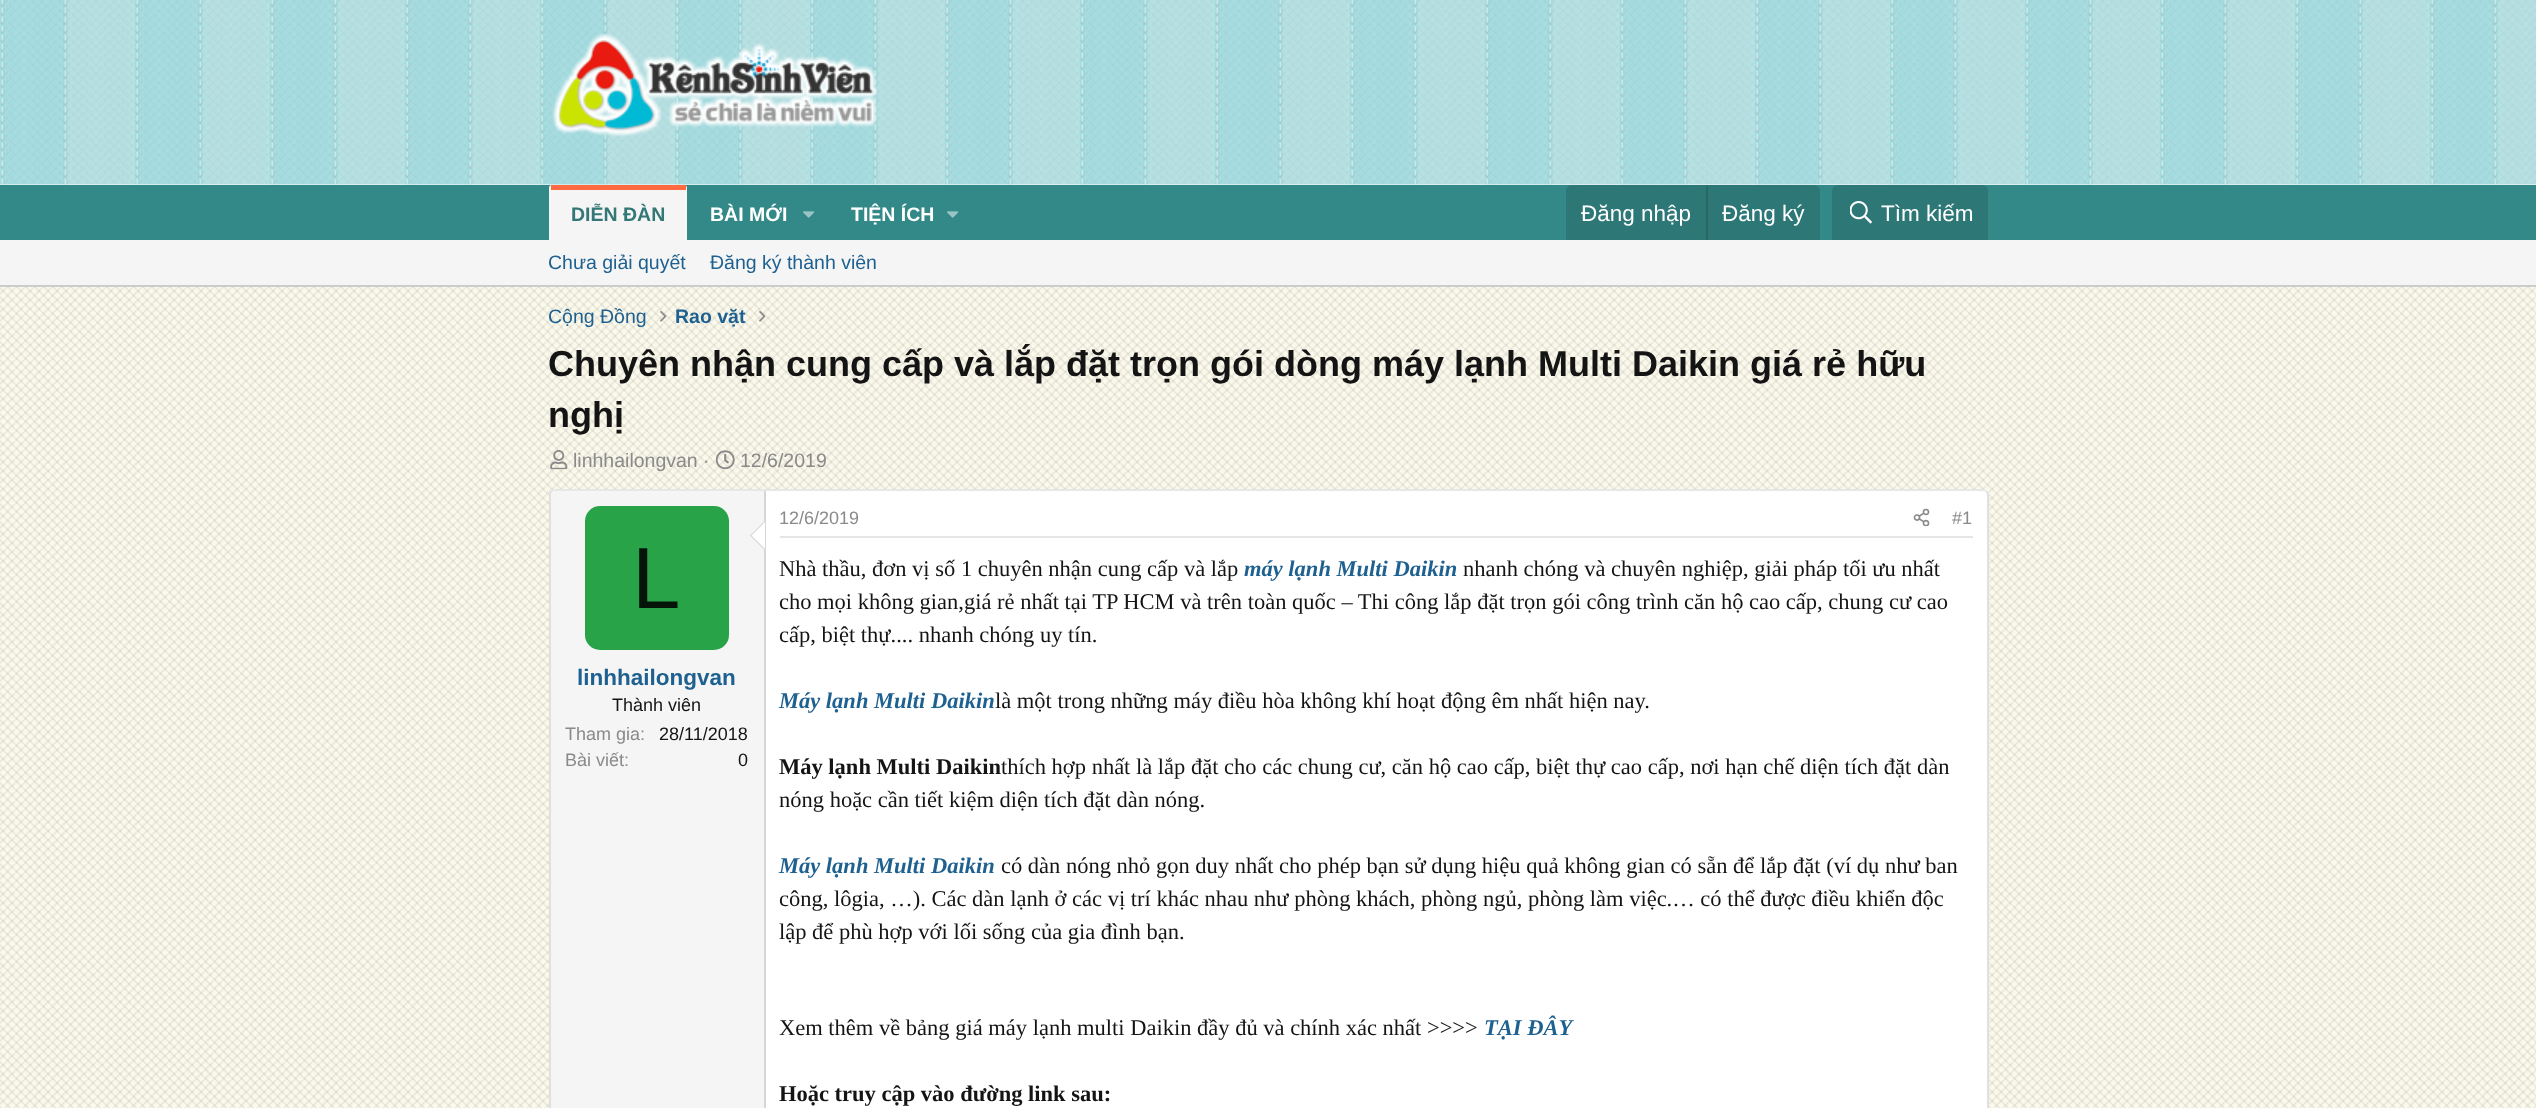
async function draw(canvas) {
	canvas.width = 2536;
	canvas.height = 1108;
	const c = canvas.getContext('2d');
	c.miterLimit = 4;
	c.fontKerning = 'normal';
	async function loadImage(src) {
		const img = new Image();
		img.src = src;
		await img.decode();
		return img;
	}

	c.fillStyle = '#fff';
	c.fillRect(0, 0, 2536, 1108);
	c.drawImage(await loadImage('img1.png'), 0, 287, 2536, 821);
	c.drawImage(await loadImage('img2.png'), 0, 0, 2536, 185);
	c.drawImage(await loadImage('img3.png'), 552, 33, 326, 104);
	c.fillStyle = '#388';
	c.fillRect(0, 185, 2536, 55);
	c.fillStyle = '#f5f5f5';
	c.beginPath();
	c.roundRect(549, 185, 138, 55, [3, 3, 0, 0]);
	c.fill();
	c.fillStyle = '#ff6a40';
	c.fillRect(551, 185, 135, 5);
	c.font = 'bold 19.5px Liberation Sans';
	c.fillStyle = '#377';
	c.fillText('DIỄN ĐÀN', 571, 221);
	c.fillStyle = '#fff';
	c.fillText('BÀI MỚI', 710, 221);
	c.drawImage(await loadImage('img4.png'), 803, 211, 12, 7);
	c.fillText('TIỆN ÍCH', 851, 221);
	c.drawImage(await loadImage('img4.png'), 947, 211, 12, 7);
	c.fillStyle = '#2e7777';
	c.beginPath();
	c.roundRect(1566, 185, 254, 55, [6, 6, 0, 0]);
	c.fill();
	c.font = '22.5px Liberation Sans';
	c.fillStyle = '#fff';
	c.fillText('Đăng nhập', 1581, 221);
	c.fillStyle = '#2a6868';
	c.fillRect(1706, 185, 2, 55);
	c.fillStyle = '#fff';
	c.fillText('Đăng ký', 1722, 221);
	c.fillStyle = '#2e7777';
	c.beginPath();
	c.roundRect(1832, 185, 156, 55, [6, 6, 0, 0]);
	c.fill();
	c.drawImage(await loadImage('img5.png'), 1850, 201, 22, 23);
	c.fillStyle = '#fff';
	c.fillText('Tìm kiếm', 1881, 221);
	c.fillStyle = '#f5f5f5';
	c.fillRect(0, 240, 2536, 45);
	c.fillStyle = '#ccc';
	c.fillRect(0, 285, 2536, 2);
	c.font = '19.5px Liberation Sans';
	c.fillStyle = '#1e6190';
	for (const [text, x, y] of [
		['Chưa giải quyết', 548, 269],
		['Đăng ký thành viên', 710, 269],
		['Cộng Đồng', 548, 323],
	]) {
		c.fillText(text, x, y);
	}
	c.drawImage(await loadImage('img6.png'), 660, 310, 7, 12);
	c.font = 'bold 19.5px Liberation Sans';
	c.fillText('Rao vặt', 675, 323);
	c.drawImage(await loadImage('img7.png'), 759, 310, 6, 12);
	c.font = 'bold 36px Liberation Sans';
	c.fillStyle = '#141414';
	c.fillText('Chuyên nhận cung cấp và lắp đặt trọn gói dòng máy lạnh Multi Daikin giá rẻ hữu', 548, 376);
	c.fillText('nghị', 548, 427);
	c.drawImage(await loadImage('img8.png'), 550, 450, 18, 20);
	c.font = '19.5px Liberation Sans';
	c.fillStyle = '#8a8a8a';
	c.fillText('linhhailongvan ·', 573, 467);
	c.drawImage(await loadImage('img9.png'), 715, 450, 20, 20);
	c.fillText('12/6/2019', 740, 467);
	c.fillStyle = '#fff';
	c.beginPath();
	c.roundRect(549, 489, 1440, 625, 6);
	c.fill();
	c.beginPath();
	c.moveTo(551.5, 491.5);
	c.bezierCurveTo(552.5, 490.5, 553.5, 490, 555, 490);
	c.lineTo(1983, 490);
	c.bezierCurveTo(1984.5, 490, 1985.5, 490.5, 1986.5, 491.5);
	c.strokeStyle = '#e0e0e0';
	c.lineWidth = 1.5;
	c.stroke();
	c.beginPath();
	c.moveTo(1986.5, 491.5);
	c.bezierCurveTo(1987.5, 492.5, 1988, 493.5, 1988, 495);
	c.lineTo(1988, 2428.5);
	c.bezierCurveTo(1988, 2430, 1987.5, 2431, 1986.5, 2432);
	c.strokeStyle = '#d6d6d6';
	c.stroke();
	c.beginPath();
	c.moveTo(551.5, 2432);
	c.bezierCurveTo(550.5, 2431, 550, 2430, 550, 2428.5);
	c.lineTo(550, 495);
	c.bezierCurveTo(550, 493.5, 550.5, 492.5, 551.5, 491.5);
	c.stroke();
	c.fillStyle = '#f5f5f5';
	c.beginPath();
	c.moveTo(556, 491);
	c.lineTo(765, 491);
	c.lineTo(765, 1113);
	c.lineTo(556, 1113);
	c.bezierCurveTo(553, 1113, 551, 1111, 551, 1108);
	c.lineTo(551, 496);
	c.bezierCurveTo(551, 493, 553, 491, 556, 491);
	c.closePath();
	c.fill();
	c.fillStyle = '#d6d6d6';
	c.fillRect(764, 491, 2, 617);
	c.beginPath();
	c.moveTo(765, 520.5);
	c.lineTo(765, 550.5);
	c.lineTo(750, 535.5);
	c.closePath();
	c.fill();
	c.fillStyle = '#fff';
	c.beginPath();
	c.moveTo(765, 522);
	c.lineTo(765, 549);
	c.lineTo(751.5, 535.5);
	c.closePath();
	c.fill();
	c.fillStyle = '#29a347';
	c.beginPath();
	c.roundRect(585, 506, 144, 144, 15);
	c.fill();
	c.font = '87px Liberation Sans';
	c.fillStyle = '#051409';
	c.fillText('L', 632, 608);
	c.font = 'bold 22.5px Liberation Sans';
	c.fillStyle = '#1e6190';
	c.fillText('linhhailongvan', 577, 685);
	c.font = '18px Liberation Sans';
	c.fillStyle = '#141414';
	c.fillText('Thành viên', 612, 711);
	c.fillStyle = '#8a8a8a';
	c.fillText('Tham gia:', 565, 740);
	c.fillStyle = '#141414';
	c.fillText('28/11/2018', 659, 740);
	c.fillStyle = '#8a8a8a';
	c.fillText('Bài viết:', 565, 766);
	c.fillStyle = '#141414';
	c.fillText('0', 738, 766);
	c.fillStyle = '#e5e5e5';
	c.fillRect(780, 536, 1193, 2);
	c.fillStyle = '#8a8a8a';
	c.fillText('12/6/2019', 779, 524);
	c.drawImage(await loadImage('img10.png'), 1913, 508, 17, 19);
	c.fillText('#1', 1952, 524);
	c.font = '22.5px Liberation Serif';
	c.fillStyle = '#141414';
	c.fillText('Nhà thầu, đơn vị số 1 chuyên nhận cung cấp và lắp', 779, 576);
	c.font = 'italic bold 22.5px Liberation Serif';
	c.fillStyle = '#1e6190';
	c.fillText('máy lạnh Multi Daikin', 1244, 576);
	c.font = '22.5px Liberation Serif';
	c.fillStyle = '#141414';
	for (const [text, x, y] of [
		['nhanh chóng và chuyên nghiệp, giải pháp tối ưu nhất', 1463, 576],
		['cho mọi không gian,giá rẻ nhất tại TP HCM và trên toàn quốc – Thi công lắp đặt trọn gói công trình căn hộ cao cấp, chung cư cao', 779, 609],
		['cấp, biệt thự.... nhanh chóng uy tín.', 779, 642],
	]) {
		c.fillText(text, x, y);
	}
	c.font = 'italic bold 22.5px Liberation Serif';
	c.fillStyle = '#1e6190';
	c.fillText('Máy lạnh Multi Daikin', 779, 708);
	c.font = '22.5px Liberation Serif';
	c.fillStyle = '#141414';
	c.fillText('là một trong những máy điều hòa không khí hoạt động êm nhất hiện nay.', 995, 708);
	c.font = 'bold 22.5px Liberation Serif';
	c.fillText('Máy lạnh Multi Daikin', 779, 774);
	c.font = '22.5px Liberation Serif';
	c.fillText('thích hợp nhất là lắp đặt cho các chung cư, căn hộ cao cấp, biệt thự cao cấp, nơi hạn chế diện tích đặt dàn', 1001, 774);
	c.fillText('nóng hoặc cần tiết kiệm diện tích đặt dàn nóng.', 779, 807);
	c.font = 'italic bold 22.5px Liberation Serif';
	c.fillStyle = '#1e6190';
	c.fillText('Máy lạnh Multi Daikin', 779, 873);
	c.font = '22.5px Liberation Serif';
	c.fillStyle = '#141414';
	for (const [text, x, y] of [
		['có dàn nóng nhỏ gọn duy nhất cho phép bạn sử dụng hiệu quả không gian có sẵn để lắp đặt (ví dụ như ban', 1001, 873],
		['công, lôgia, …). Các dàn lạnh ở các vị trí khác nhau như phòng khách, phòng ngủ, phòng làm việc.… có thể được điều khiển độc', 779, 906],
		['lập để phù hợp với lối sống của gia đình bạn.', 779, 939],
		['Xem thêm về bảng giá máy lạnh multi Daikin đầy đủ và chính xác nhất >>>>', 779, 1035],
	]) {
		c.fillText(text, x, y);
	}
	c.font = 'italic bold 22.5px Liberation Serif';
	c.fillStyle = '#1e6190';
	c.fillText('TẠI ĐÂY', 1484, 1035);
	c.font = 'bold 22.5px Liberation Serif';
	c.fillStyle = '#141414';
	c.fillText('Hoặc truy cập vào đường link sau:', 779, 1101);
}

draw(document.querySelector('canvas'));
